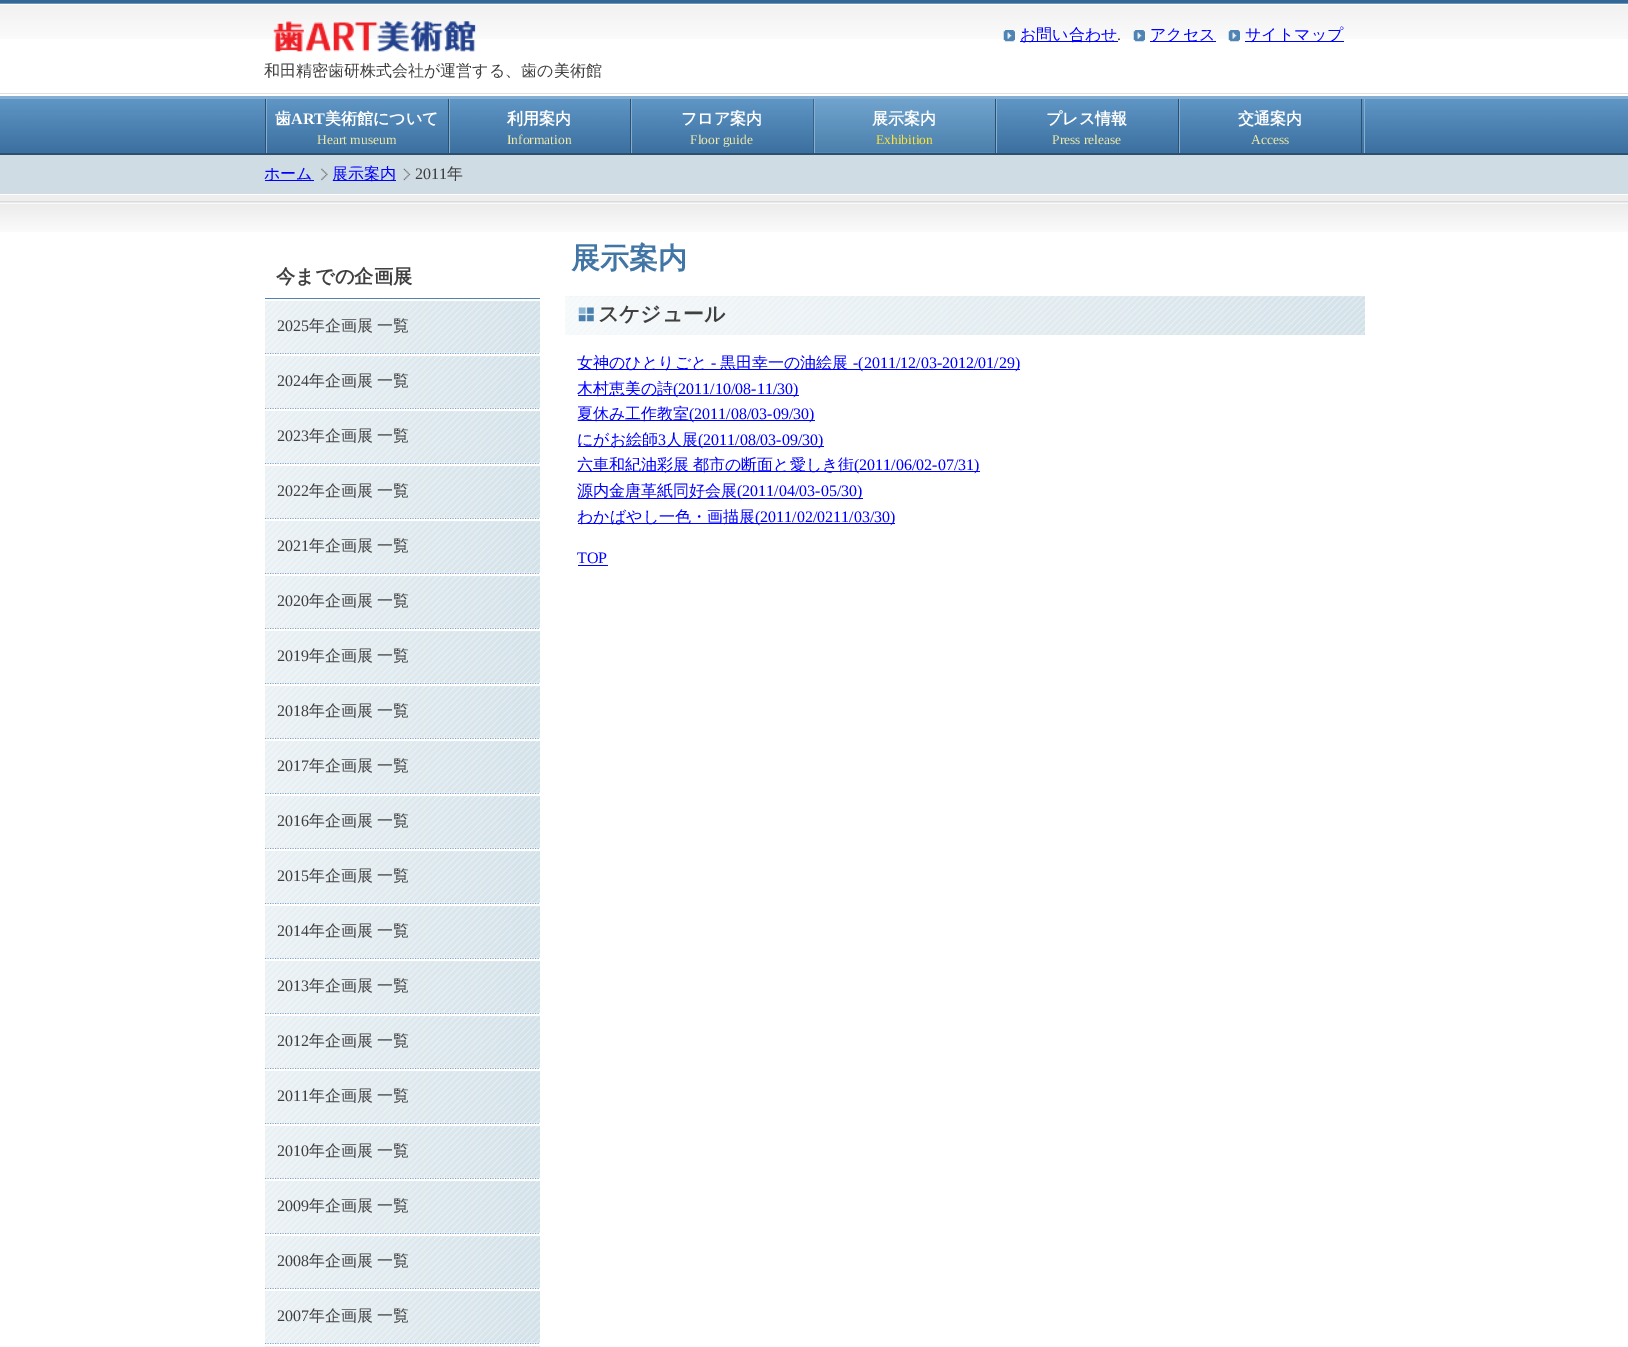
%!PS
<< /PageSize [1628 1347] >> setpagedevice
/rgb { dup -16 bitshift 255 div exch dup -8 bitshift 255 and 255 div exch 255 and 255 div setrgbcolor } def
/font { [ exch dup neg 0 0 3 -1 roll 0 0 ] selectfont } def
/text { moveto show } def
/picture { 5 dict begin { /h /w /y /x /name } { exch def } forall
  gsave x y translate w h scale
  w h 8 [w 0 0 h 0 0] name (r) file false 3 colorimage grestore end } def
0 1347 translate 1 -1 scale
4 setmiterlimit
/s1 { /WenQuanYiZenHei-Medium 16 font 16#0000FF rgb } def
/s2 { /LiberationSerif-Regular 16 font 16#404040 rgb } def
/s3 { /WenQuanYiZenHei-Medium 16 font 16#404040 rgb } def
/s4 { /WenQuanYiZenHei-Bold 16 font 16#FFFFFF rgb } def
/s5 { /LiberationSerif-Bold 16 font 16#FFFFFF rgb } def
/s6 { /LiberationSerif-Regular 13.5 font 16#EEE8AA rgb } def
/s7 { /LiberationSerif-Regular 13.5 font 16#FDE337 rgb } def
/s8 { /WenQuanYiZenHei-Bold 19.25 font 16#404040 rgb } def
/s9 { /WenQuanYiZenHei-Bold 29 font 16#4075A5 rgb } def
/s10 { /WenQuanYiZenHei-Bold 20.75 font 16#404040 rgb } def
/s11 { /LiberationSerif-Regular 16 font 16#0000FF rgb } def
16#FFFFFF rgb
0 0 1628 1347 rectfill
(pic1.raw) 0 0 1628 39 picture
16#E0E0E0 rgb
0 93 1628 1 rectfill
(pic2.raw) 273 21 203 31 picture
(pic3.raw) 1003 30 12 12 picture
16#0000FF rgb
1020 41 98 1 rectfill
s1
(お問い合わせ) 1020 40 text
s2
(.) 1117 40 text
(pic3.raw) 1133 30 12 12 picture
16#0000FF rgb
1150 41 66 1 rectfill
s1
(アクセス) 1150 40 text
(pic4.raw) 1228 30 12 12 picture
1245 41 99 1 rectfill
(サイトマップ) 1245 40 text
s3
(和田精密歯研株式会社が運営する、歯の美術館) 264 76 text
(pic5.raw) 0 99 1628 54 picture
16#84AED2 rgb
0 96 1628 3 rectfill
16#2C5170 rgb
0 153 1628 2 rectfill
16#84AED2 rgb
1364 99 1 54 rectfill
16#2C5170 rgb
265 99 1 54 rectfill
448 99 1 54 rectfill
16#84AED2 rgb
266 99 1 54 rectfill
s4
(歯) 275 124 text
s5
(ART) 291 124 text
s4
(美術館について) 325 124 text
s6
(Heart museum) 317 144 text
16#2C5170 rgb
630 99 1 54 rectfill
16#84AED2 rgb
449 99 1 54 rectfill
s4
(利用案内) 507 124 text
s6
(Information) 507 144 text
16#2C5170 rgb
813 99 1 54 rectfill
16#84AED2 rgb
631 99 1 54 rectfill
s4
(フロア案内) 681 124 text
s6
(Floor guide) 690 144 text
16#5E91BD rgb
815 152 180 1 rectfill
(pic6.raw) 813 98 184 55 picture
16#2C5170 rgb
995 99 1 54 rectfill
16#84AED2 rgb
814 99 1 54 rectfill
s4
(展示案内) 872 124 text
s7
(Exhibition) 876 144 text
16#2C5170 rgb
1178 99 1 54 rectfill
16#84AED2 rgb
996 99 1 54 rectfill
s4
(プレス情報) 1046 124 text
s6
(Press release) 1052 144 text
16#2C5170 rgb
1361 99 1 54 rectfill
16#84AED2 rgb
1179 99 1 54 rectfill
s4
(交通案内) 1238 124 text
s6
(Access) 1251 144 text
16#CFDCE3 rgb
0 155 1628 39 rectfill
16#0000FF rgb
265 180 49 1 rectfill
s1
(ホーム) 264 179 text
(pic7.raw) 321 168 7 13 picture
333 180 63 1 rectfill
(展示案内) 332 179 text
(pic8.raw) 403 168 8 13 picture
s2
(2011) 415 179 text
s3
(年) 447 179 text
(pic9.raw) 0 195 1628 37 picture
16#4E83B3 rgb
265 298 275 1 rectfill
s8
(今までの企画展) 276 283 text
16#4E83B3 rgb
1.2 setlinewidth
[1.25 1.25] 0 setdash
265 353 moveto 540 353 lineto stroke
16#EBF0F3 rgb
265 301 275 52 rectfill
(pic10.raw) 265 301 275 52 picture
s2
(2025) 277 331 text
/WenQuanYiZenHei-Medium 16 font
309 331 moveto -1 0 32 (年企画展 一覧) widthshow
16#4E83B3 rgb
265 408 moveto 540 408 lineto stroke
16#EBF0F3 rgb
265 356 275 52 rectfill
(pic11.raw) 265 356 275 52 picture
s2
(2024) 277 386 text
/WenQuanYiZenHei-Medium 16 font
309 386 moveto -1 0 32 (年企画展 一覧) widthshow
16#4E83B3 rgb
265 463 moveto 540 463 lineto stroke
16#EBF0F3 rgb
265 411 275 52 rectfill
(pic12.raw) 265 411 275 52 picture
s2
(2023) 277 441 text
/WenQuanYiZenHei-Medium 16 font
309 441 moveto -1 0 32 (年企画展 一覧) widthshow
16#4E83B3 rgb
265 518 moveto 540 518 lineto stroke
16#EBF0F3 rgb
265 466 275 52 rectfill
(pic13.raw) 265 466 275 52 picture
s2
(2022) 277 496 text
/WenQuanYiZenHei-Medium 16 font
309 496 moveto -1 0 32 (年企画展 一覧) widthshow
16#4E83B3 rgb
265 573 moveto 540 573 lineto stroke
16#EBF0F3 rgb
265 521 275 52 rectfill
(pic14.raw) 265 521 275 52 picture
s2
(2021) 277 551 text
/WenQuanYiZenHei-Medium 16 font
309 551 moveto -1 0 32 (年企画展 一覧) widthshow
16#4E83B3 rgb
265 628 moveto 540 628 lineto stroke
16#EBF0F3 rgb
265 576 275 52 rectfill
(pic15.raw) 265 576 275 52 picture
s2
(2020) 277 606 text
/WenQuanYiZenHei-Medium 16 font
309 606 moveto -1 0 32 (年企画展 一覧) widthshow
16#4E83B3 rgb
265 683 moveto 540 683 lineto stroke
16#EBF0F3 rgb
265 631 275 52 rectfill
(pic16.raw) 265 631 275 52 picture
s2
(2019) 277 661 text
/WenQuanYiZenHei-Medium 16 font
309 661 moveto -1 0 32 (年企画展 一覧) widthshow
16#4E83B3 rgb
265 738 moveto 540 738 lineto stroke
16#EBF0F3 rgb
265 686 275 52 rectfill
(pic17.raw) 265 686 275 52 picture
s2
(2018) 277 716 text
/WenQuanYiZenHei-Medium 16 font
309 716 moveto -1 0 32 (年企画展 一覧) widthshow
16#4E83B3 rgb
265 793 moveto 540 793 lineto stroke
16#EBF0F3 rgb
265 741 275 52 rectfill
(pic18.raw) 265 741 275 52 picture
s2
(2017) 277 771 text
/WenQuanYiZenHei-Medium 16 font
309 771 moveto -1 0 32 (年企画展 一覧) widthshow
16#4E83B3 rgb
265 848 moveto 540 848 lineto stroke
16#EBF0F3 rgb
265 796 275 52 rectfill
(pic19.raw) 265 796 275 52 picture
s2
(2016) 277 826 text
/WenQuanYiZenHei-Medium 16 font
309 826 moveto -1 0 32 (年企画展 一覧) widthshow
16#4E83B3 rgb
265 903 moveto 540 903 lineto stroke
16#EBF0F3 rgb
265 851 275 52 rectfill
(pic20.raw) 265 851 275 52 picture
s2
(2015) 277 881 text
/WenQuanYiZenHei-Medium 16 font
309 881 moveto -1 0 32 (年企画展 一覧) widthshow
16#4E83B3 rgb
265 958 moveto 540 958 lineto stroke
16#EBF0F3 rgb
265 906 275 52 rectfill
(pic21.raw) 265 906 275 52 picture
s2
(2014) 277 936 text
/WenQuanYiZenHei-Medium 16 font
309 936 moveto -1 0 32 (年企画展 一覧) widthshow
16#4E83B3 rgb
265 1013 moveto 540 1013 lineto stroke
16#EBF0F3 rgb
265 961 275 52 rectfill
(pic22.raw) 265 961 275 52 picture
s2
(2013) 277 991 text
/WenQuanYiZenHei-Medium 16 font
309 991 moveto -1 0 32 (年企画展 一覧) widthshow
16#4E83B3 rgb
265 1068 moveto 540 1068 lineto stroke
16#EBF0F3 rgb
265 1016 275 52 rectfill
(pic23.raw) 265 1016 275 52 picture
s2
(2012) 277 1046 text
/WenQuanYiZenHei-Medium 16 font
309 1046 moveto -1 0 32 (年企画展 一覧) widthshow
16#4E83B3 rgb
265 1123 moveto 540 1123 lineto stroke
16#EBF0F3 rgb
265 1071 275 52 rectfill
(pic24.raw) 265 1071 275 52 picture
s2
(2011) 277 1101 text
/WenQuanYiZenHei-Medium 16 font
309 1101 moveto -1 0 32 (年企画展 一覧) widthshow
16#4E83B3 rgb
265 1178 moveto 540 1178 lineto stroke
16#EBF0F3 rgb
265 1126 275 52 rectfill
(pic25.raw) 265 1126 275 52 picture
s2
(2010) 277 1156 text
/WenQuanYiZenHei-Medium 16 font
309 1156 moveto -1 0 32 (年企画展 一覧) widthshow
16#4E83B3 rgb
265 1233 moveto 540 1233 lineto stroke
16#EBF0F3 rgb
265 1181 275 52 rectfill
(pic26.raw) 265 1181 275 52 picture
s2
(2009) 277 1211 text
/WenQuanYiZenHei-Medium 16 font
309 1211 moveto -1 0 32 (年企画展 一覧) widthshow
16#4E83B3 rgb
265 1288 moveto 540 1288 lineto stroke
16#EBF0F3 rgb
265 1236 275 52 rectfill
(pic27.raw) 265 1236 275 52 picture
s2
(2008) 277 1266 text
/WenQuanYiZenHei-Medium 16 font
309 1266 moveto -1 0 32 (年企画展 一覧) widthshow
16#4E83B3 rgb
265 1343 moveto 540 1343 lineto stroke
16#EBF0F3 rgb
265 1291 275 52 rectfill
(pic21.raw) 265 1291 275 52 picture
s2
(2007) 277 1321 text
/WenQuanYiZenHei-Medium 16 font
309 1321 moveto -1 0 32 (年企画展 一覧) widthshow
16#EBF0F3 rgb
265 1346 275 1 rectfill
(pic28.raw) 268 1346 272 1 picture
s9
(展示案内) 571 268 text
(pic29.raw) 565 296 800 39 picture
(pic30.raw) 578 307 16 15 picture
s10
(スケジュール) 598 321 text
16#0000FF rgb
578 369 442 1 rectfill
s1
(女神のひとりごと) 577 368 text
s11
(-) 711 368 text
s1
(黒田幸一の油絵展) 720 368 text
s11
(-\(2011/12/03-2012/01/29\)) 853 368 text
578 395 221 1 rectfill
s1
(木村恵美の詩) 577 394 text
s11
(\(2011/10/08-11/30\)) 673 394 text
578 420 237 1 rectfill
s1
(夏休み工作教室) 577 419 text
s11
(\(2011/08/03-09/30\)) 689 419 text
578 446 246 1 rectfill
s1
(にがお絵師) 577 445 text
s11
(3) 658 445 text
s1
(人展) 666 445 text
s11
(\(2011/08/03-09/30\)) 698 445 text
578 471 402 1 rectfill
/WenQuanYiZenHei-Medium 16 font
577 470 moveto -1 0 32 (六車和紀油彩展 都市の断面と愛しき街) widthshow
s11
(\(2011/06/02-07/31\)) 854 470 text
578 498 285 1 rectfill
s1
(源内金唐革紙同好会展) 577 496 text
s11
(\(2011/04/03-05/30\)) 737 496 text
578 523 317 1 rectfill
s1
(わかばやし一色・画描展) 577 522 text
s11
(\(2011/02/0211/03/30\)) 755 522 text
(TOP) 577 563 text
578 565 30 1 rectfill
showpage
